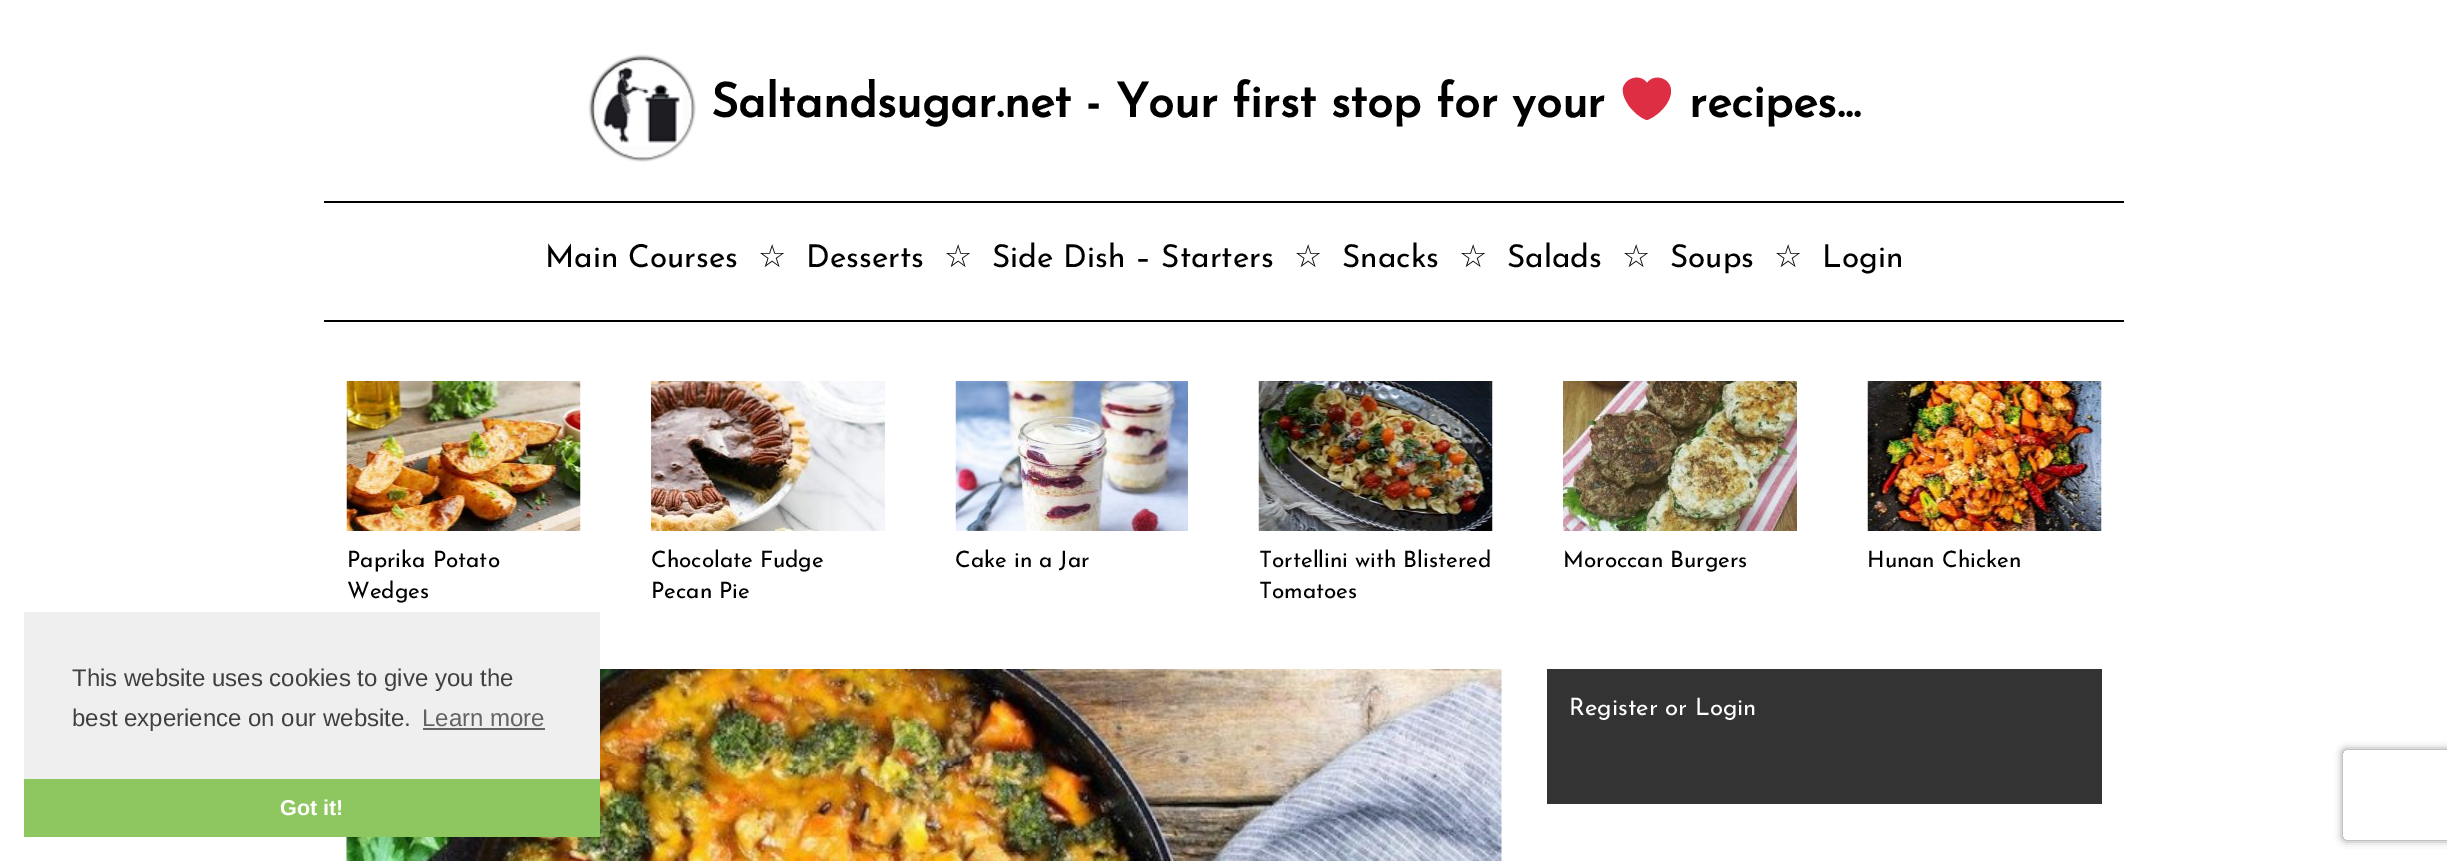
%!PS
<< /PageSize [2447 861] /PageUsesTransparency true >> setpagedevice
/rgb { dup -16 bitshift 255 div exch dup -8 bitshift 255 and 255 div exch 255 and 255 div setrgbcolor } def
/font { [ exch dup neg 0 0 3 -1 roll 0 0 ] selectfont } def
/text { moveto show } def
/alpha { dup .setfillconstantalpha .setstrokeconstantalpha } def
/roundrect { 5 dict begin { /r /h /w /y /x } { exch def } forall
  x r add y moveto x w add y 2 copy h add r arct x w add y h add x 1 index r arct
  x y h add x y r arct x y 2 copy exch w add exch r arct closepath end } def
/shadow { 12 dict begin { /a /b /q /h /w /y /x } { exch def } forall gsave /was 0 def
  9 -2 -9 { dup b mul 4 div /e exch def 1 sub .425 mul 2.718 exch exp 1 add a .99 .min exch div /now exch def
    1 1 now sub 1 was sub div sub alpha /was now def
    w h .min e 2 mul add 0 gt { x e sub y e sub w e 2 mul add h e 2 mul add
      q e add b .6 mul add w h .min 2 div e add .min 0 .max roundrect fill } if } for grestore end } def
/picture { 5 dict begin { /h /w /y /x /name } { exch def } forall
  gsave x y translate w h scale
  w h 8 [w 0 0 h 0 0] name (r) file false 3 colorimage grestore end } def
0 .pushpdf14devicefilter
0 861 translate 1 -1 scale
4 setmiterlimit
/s1 { /JosefinSans-Bold 47.25 font 16#000000 rgb } def
/s2 { /JosefinSans-Thin 31.5 font 16#000000 rgb } def
/s3 { /DejaVuSans-Regular 31.5 font 16#000000 rgb } def
/s4 { /JosefinSans-Thin 22.5 font 16#000000 rgb } def
/s5 { /JosefinSans-Thin 24 font 16#FFFFFF rgb } def
/s6 { /LiberationSans-Regular 24 font 16#404040 rgb } def
/s7 { /LiberationSans-Regular 24 font 16#636363 rgb } def
/s8 { /LiberationSans-Bold 21.5 font 16#FFFFFF rgb } def
16#FFFFFF rgb
0 0 2447 861 rectfill
(pic1.raw) 588 54 108 108 picture
s1
(Saltandsugar.net - Your first stop for your) 711 117 text
16#DD2E44 rgb
1671 91 moveto 1671 78 1654 73 1647 83 curveto 1641 74 1626 77 1623 88 curveto 1622 95 1626 101 1629 106 curveto 1634 112 1640 118 1647 120 curveto 1658 116 1671 103 1671 91 curveto closepath fill
s1
(recipes...) 1689 117 text
324 201 1800 2 rectfill
324 320 1800 2 rectfill
s2
(Main Courses) 545 267 text
s3
(☆) 758 267 text
s2
(Desserts) 806 267 text
s3
(☆) 944 267 text
s2
(Side Dish – Starters) 992 267 text
s3
(☆) 1294 267 text
s2
(Snacks) 1342 267 text
s3
(☆) 1459 267 text
s2
(Salads) 1507 267 text
s3
(☆) 1622 267 text
s2
(Soups) 1670 267 text
s3
(☆) 1774 267 text
s2
(Login) 1822 267 text
(pic2.raw) 346 381 235 150 picture
s4
(Paprika Potato) 347 567 text
(Wedges) 347 598 text
(pic3.raw) 651 381 234 150 picture
(Chocolate Fudge) 651 567 text
(Pecan Pie) 651 598 text
(pic4.raw) 955 381 233 150 picture
(Cake in a Jar) 955 567 text
(pic5.raw) 1258 381 235 150 picture
(Tortellini with Blistered) 1259 567 text
(Tomatoes) 1259 598 text
(pic6.raw) 1563 381 234 150 picture
(Moroccan Burgers) 1563 567 text
(pic7.raw) 1867 381 235 150 picture
(Hunan Chicken) 1867 567 text
(pic8.raw) 346 669 1156 192 picture
16#333333 rgb
1547 669 555 135 rectfill
s5
(Register or Login) 1569 715 text
16#EFEFEF rgb
24 612 576 167 rectfill
s6
(This website uses cookies to give you the) 72 686 text
(best experience on our website.) 72 726 text
s7
(Learn more) 422 726 text
423 728 122 2 rectfill
16#8EC760 rgb
24 779 576 58 rectfill
s8
(Got it!) 280 815 text
gsave
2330 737 moveto 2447 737 lineto 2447 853 lineto 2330 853 lineto closepath 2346 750 moveto 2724 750 lineto 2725.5 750 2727 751.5 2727 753 curveto 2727 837 lineto 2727 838.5 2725.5 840 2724 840 curveto 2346 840 lineto 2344.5 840 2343 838.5 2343 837 curveto 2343 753 lineto 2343 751.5 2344.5 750 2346 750 curveto closepath eoclip newpath
16#808080 rgb
2343 750 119 90 3 4 1 shadow
grestore
.poppdf14devicefilter showpage
